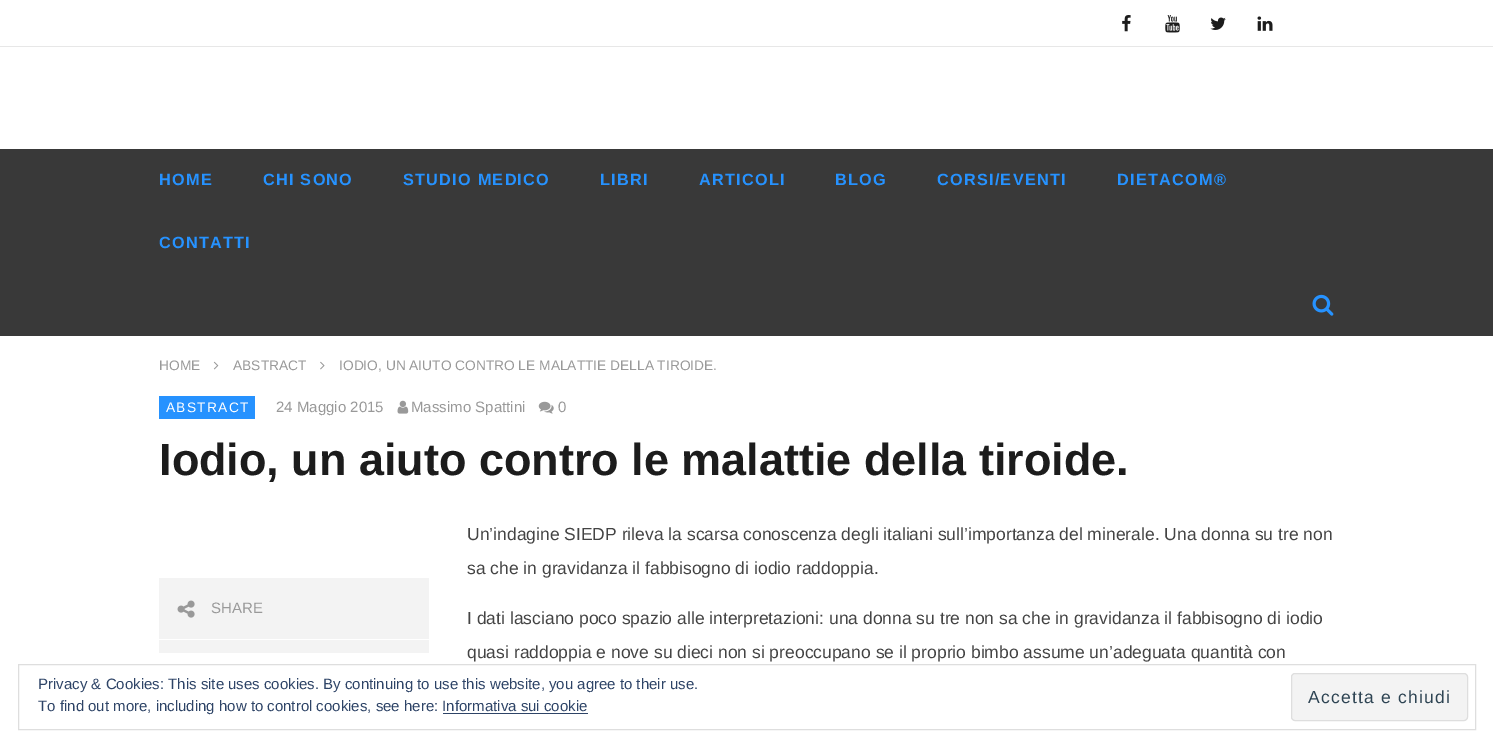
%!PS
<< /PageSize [1493 747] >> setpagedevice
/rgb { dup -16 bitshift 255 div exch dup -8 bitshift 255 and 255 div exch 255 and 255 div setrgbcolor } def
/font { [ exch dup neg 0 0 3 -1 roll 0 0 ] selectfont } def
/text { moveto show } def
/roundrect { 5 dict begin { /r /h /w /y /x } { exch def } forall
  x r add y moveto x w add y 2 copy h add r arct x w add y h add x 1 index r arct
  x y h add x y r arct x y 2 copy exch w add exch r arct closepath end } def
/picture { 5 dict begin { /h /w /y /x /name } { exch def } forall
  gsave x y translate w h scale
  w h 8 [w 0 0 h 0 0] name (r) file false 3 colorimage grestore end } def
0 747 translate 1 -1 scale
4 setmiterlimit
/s1 { /LiberationSans-Regular 13.75 font 16#999999 rgb } def
/s2 { /LiberationSans-Regular 15 font 16#999999 rgb } def
/s3 { /LiberationSans-Bold 45 font 16#1C1C1C rgb } def
/s4 { /LiberationSans-Regular 17.5 font 16#444444 rgb } def
/s5 { /LiberationSans-Regular 15 font 16#2E4467 rgb } def
16#FFFFFF rgb
0 0 1493 747 rectfill
16#E7E7E7 rgb
0 46 1493 1 rectfill
(pic1.raw) 1122 15 9 17 picture
(pic2.raw) 1165 15 15 18 picture
(pic3.raw) 1210 17 16 13 picture
(pic4.raw) 1257 16 16 15 picture
16#393939 rgb
0 149 1493 187 rectfill
/LiberationSans-Bold 16.25 font
16#2692FF rgb
159 185 moveto 1.25 0 (HOME) ashow
263 185 moveto 1.25 0 (CHI SONO) ashow
403 185 moveto 1.25 0 (STUDIO MEDICO) ashow
600 185 moveto 1.25 0 (LIBRI) ashow
699 185 moveto 1.25 0 (ARTICOLI) ashow
835 185 moveto 1.25 0 (BLOG) ashow
937 185 moveto 1.25 0 (CORSI/EVENTI) ashow
1117 185 moveto 1.25 0 (DIETACOM®) ashow
159 248 moveto 1.25 0 (CONTATTI) ashow
(pic5.raw) 1312 294 22 22 picture
s1
(HOME) 159 370 text
(pic6.raw) 213 361 6 9 picture
(ABSTRACT) 233 370 text
(pic7.raw) 320 361 5 9 picture
(IODIO, UN AIUTO CONTRO LE MALATTIE DELLA TIROIDE.) 339 370 text
16#2692FF rgb
159 396 96 23 rectfill
16#FFFFFF rgb
166 412 moveto 1.25 0 (ABSTRACT) ashow
s2
(24 Maggio 2015) 276 412 text
(pic8.raw) 397 400 12 14 picture
(Massimo Spattini) 411 412 text
(pic9.raw) 538 401 16 13 picture
(0) 558 412 text
s3
(Iodio, un aiuto contro le malattie della tiroide.) 159 475 text
16#F3F3F3 rgb
159 578 270 75 rectfill
16#FFFFFF rgb
159 639 270 1 rectfill
(pic10.raw) 177 600 18 18 picture
s2
(SHARE) 211 613 text
s4
(Un’indagine SIEDP rileva la scarsa conoscenza degli italiani sull’importanza del minerale. Una donna su tre non) 467 540 text
(sa che in gravidanza il fabbisogno di iodio raddoppia.) 467 574 text
(I dati lasciano poco spazio alle interpretazioni: una donna su tre non sa che in gravidanza il fabbisogno di iodio) 467 624 text
(quasi raddoppia e nove su dieci non si preoccupano se il proprio bimbo assume un’adeguata quantità con) 467 658 text
16#DEDEDE rgb
18.5 664.5 1457 65 rectstroke
s5
(Privacy & Cookies: This site uses cookies. By continuing to use this website, you agree to their use.) 38 689 text
16#F3F3F3 rgb
1291.5 673.5 176 47 3.5 roundrect gsave fill grestore
16#DEDEDE rgb
stroke
/LiberationSans-Regular 17.5 font
16#2E4453 rgb
1308 703 moveto 1.25 0 (Accetta e chiudi) ashow
s5
(To find out more, including how to control cookies, see here: Informativa sui cookie) 38 711 text
443 713 145 1 rectfill
showpage
